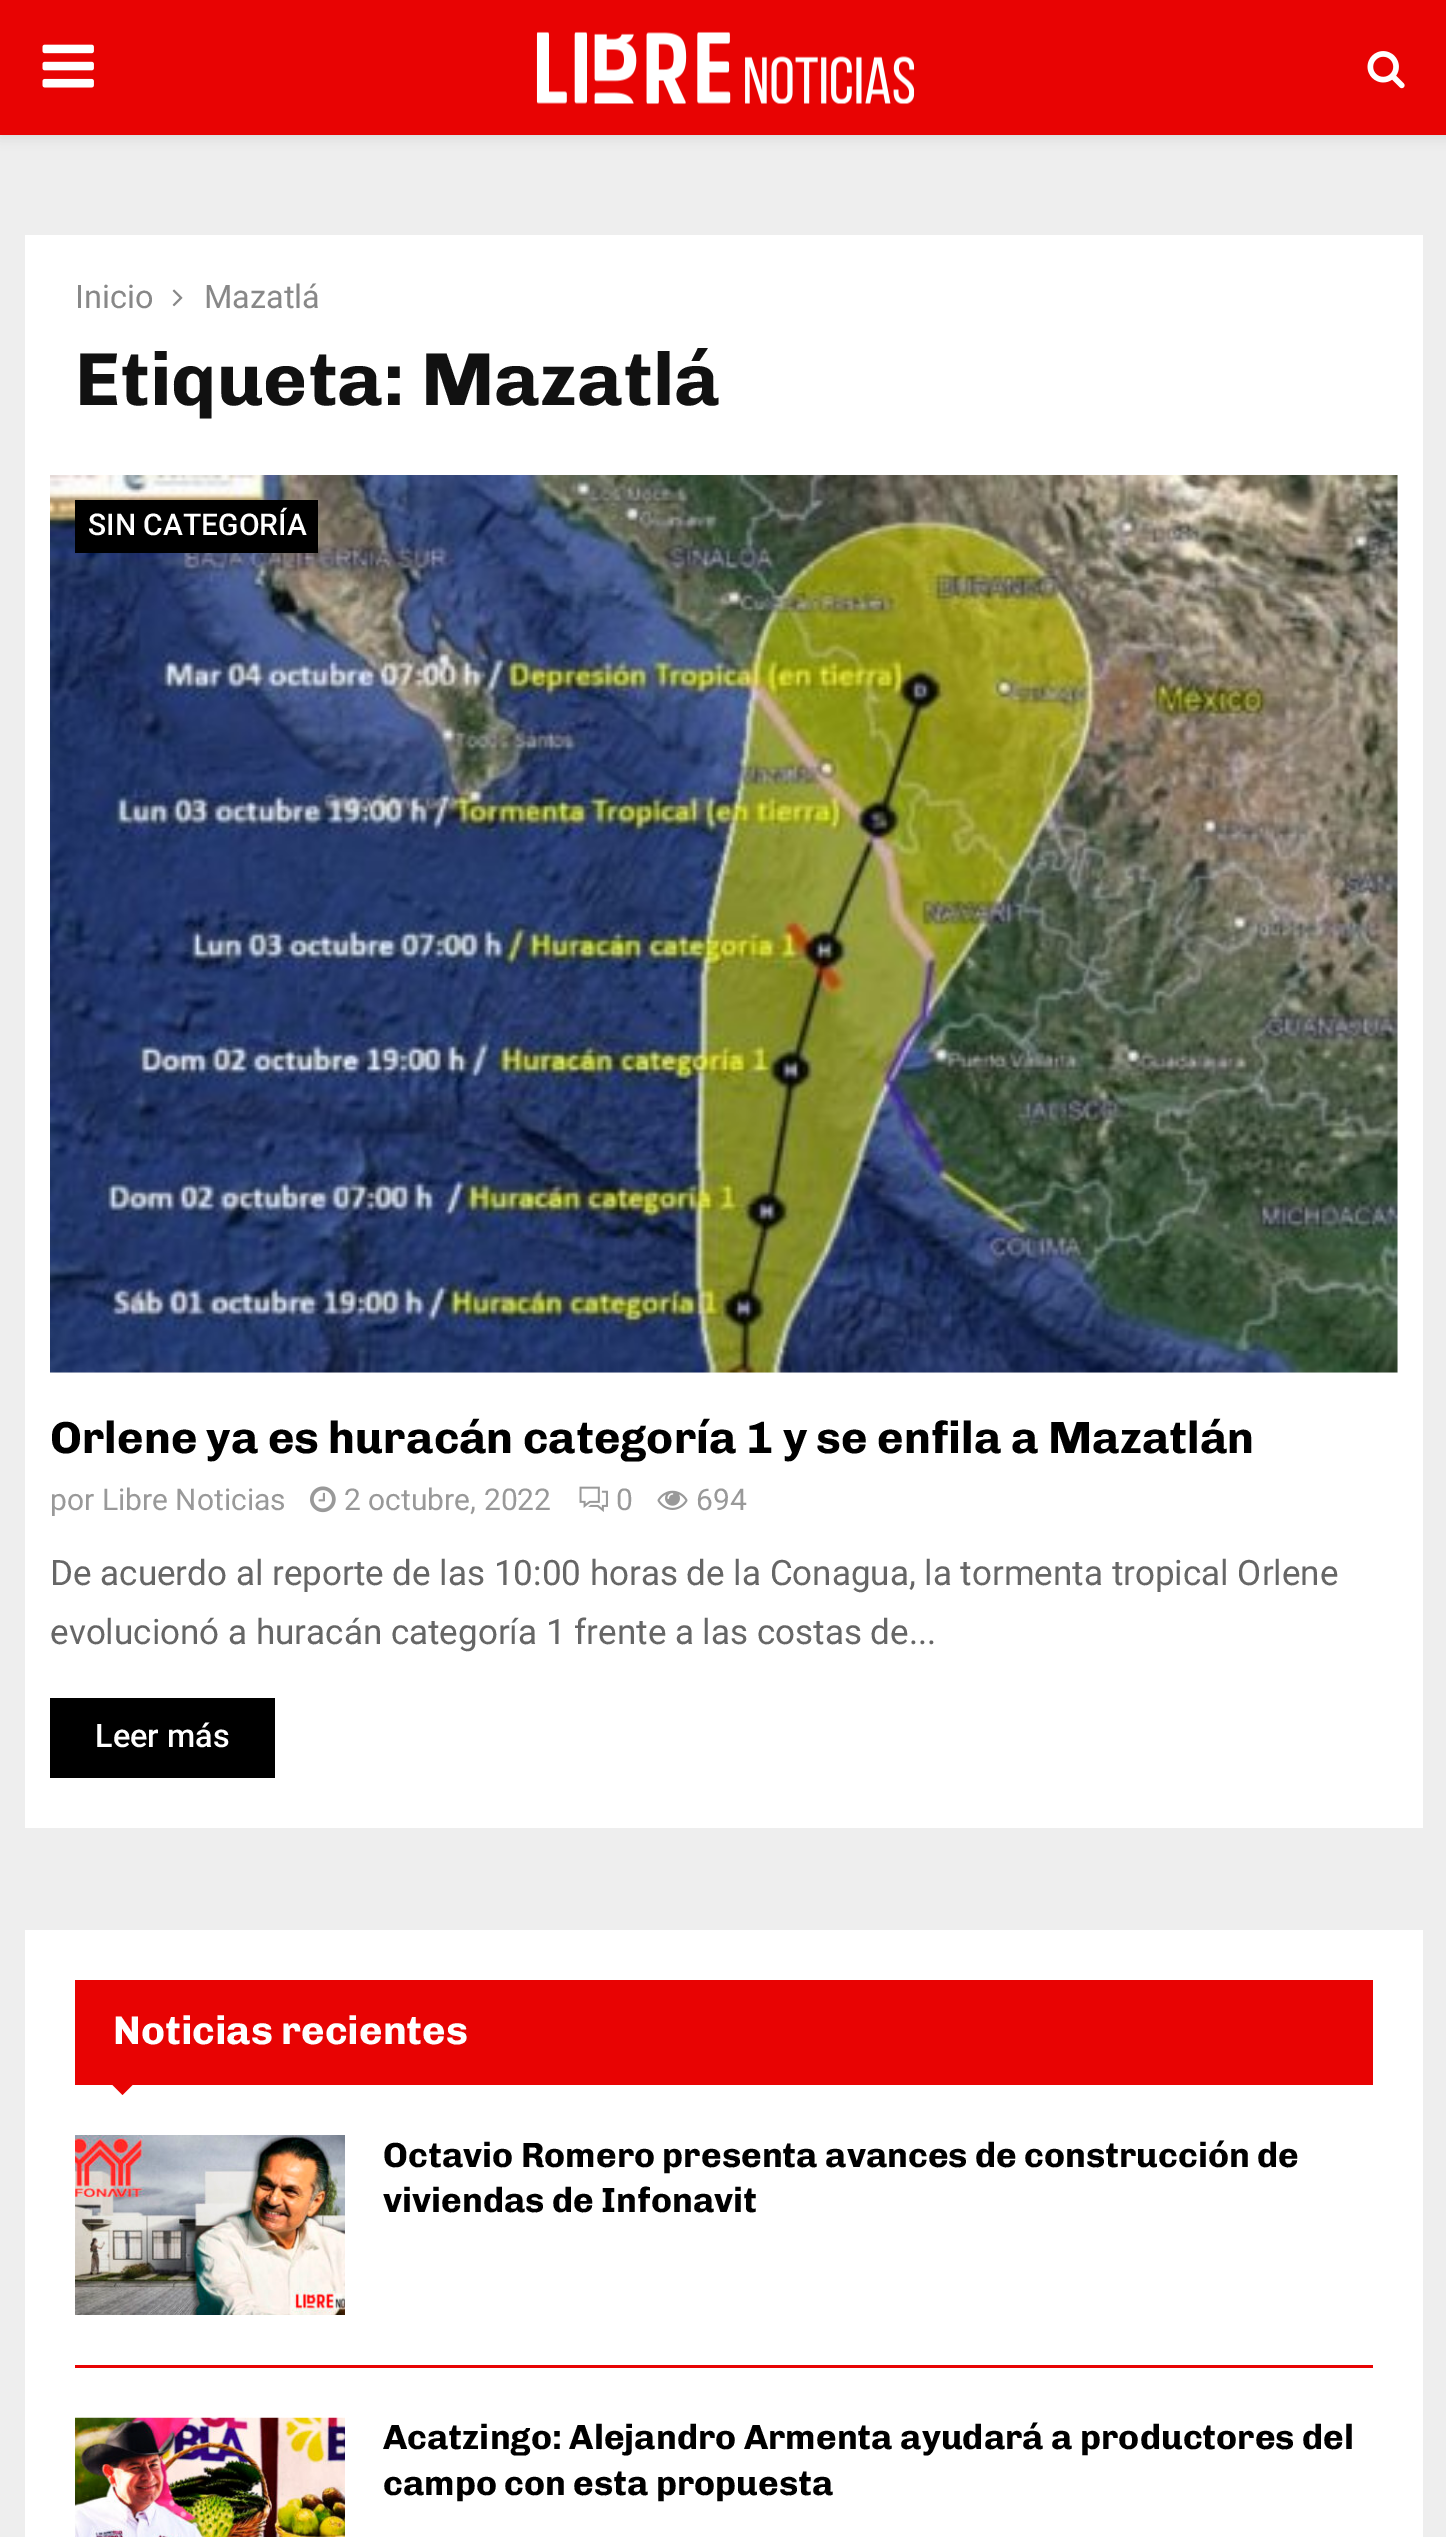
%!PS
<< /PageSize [1446 2537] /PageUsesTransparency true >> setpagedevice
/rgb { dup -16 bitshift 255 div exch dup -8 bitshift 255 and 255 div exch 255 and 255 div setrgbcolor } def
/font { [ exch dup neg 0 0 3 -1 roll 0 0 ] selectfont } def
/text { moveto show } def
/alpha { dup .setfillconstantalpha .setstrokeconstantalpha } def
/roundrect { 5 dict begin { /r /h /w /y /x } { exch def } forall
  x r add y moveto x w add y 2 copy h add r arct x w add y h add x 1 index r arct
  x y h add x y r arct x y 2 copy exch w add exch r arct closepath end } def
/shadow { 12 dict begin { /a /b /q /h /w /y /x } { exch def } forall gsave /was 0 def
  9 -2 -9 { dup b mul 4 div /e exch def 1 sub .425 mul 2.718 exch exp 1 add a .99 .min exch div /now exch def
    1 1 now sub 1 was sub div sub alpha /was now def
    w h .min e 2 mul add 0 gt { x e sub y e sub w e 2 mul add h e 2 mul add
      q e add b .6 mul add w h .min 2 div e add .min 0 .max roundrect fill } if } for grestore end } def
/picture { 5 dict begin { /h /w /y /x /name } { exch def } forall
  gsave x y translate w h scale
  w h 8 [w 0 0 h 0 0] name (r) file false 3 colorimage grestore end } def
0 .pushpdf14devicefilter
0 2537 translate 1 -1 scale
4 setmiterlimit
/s1 { /Roboto-Regular 32.5 font 16#888888 rgb } def
/s2 { /Chivo-Bold 75 font 16#111111 rgb } def
/s3 { /Roboto-Medium 30 font 16#FFFFFF rgb } def
/s4 { /Chivo-Bold 45 font 16#000000 rgb } def
/s5 { /Roboto-Regular 30 font 16#999999 rgb } def
/s6 { /Roboto-Regular 35 font 16#666666 rgb } def
/s7 { /Roboto-Medium 32.5 font 16#FFFFFF rgb } def
/s8 { /Chivo-Bold 40 font 16#FFFFFF rgb } def
/s9 { /Chivo-Bold 35 font 16#000000 rgb } def
16#EEEEEE rgb
0 0 1446 2537 rectfill
16#BEBEBE rgb
0 3 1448 135 0 6 0.46 shadow
16#E80303 rgb
0 0 1446 135 rectfill
(pic1.raw) 42 44 52 44 picture
(pic2.raw) 536 31 379 74 picture
(pic3.raw) 1367 51 38 38 picture
16#FFFFFF rgb
25 235 1398 1593 rectfill
s1
(Inicio) 75 308 text
(pic4.raw) 172 289 11 18 picture
(Mazatlá) 204 308 text
s2
(Etiqueta: Mazatlá) 75 405 text
16#F5F5F5 rgb
50 475 1348 898 rectfill
(pic5.raw) 50 475 1348 898 picture
16#000000 rgb
75 500 243 53 rectfill
s3
(SIN CATEGORÍA) 88 535 text
s4
(Orlene ya es huracán categoría 1 y se enfila a Mazatlán) 50 1453 text
s5
(por Libre Noticias) 50 1510 text
(pic6.raw) 310 1486 26 27 picture
(2 octubre, 2022) 344 1510 text
(pic7.raw) 579 1486 29 26 picture
(0) 616 1510 text
(pic8.raw) 657 1490 31 20 picture
(694) 696 1510 text
s6
(De acuerdo al reporte de las 10:00 horas de la Conagua, la tormenta tropical Orlene) 50 1585 text
(evolucionó a huracán categoría 1 frente a las costas de...) 50 1644 text
16#000000 rgb
50 1698 225 80 rectfill
s7
(Leer más) 95 1747 text
25 1930 1398 607 rectfill
16#E80303 rgb
75 1980 1298 105 rectfill
s8
(Noticias recientes) 113 2044 text
16#E80303 rgb
112.5 2085 moveto 132.5 2085 lineto 122.5 2095 lineto closepath fill
75 2365 1298 3 rectfill
(pic9.raw) 75 2135 270 180 picture
s9
(Octavio Romero presenta avances de construcción de) 383 2167 text
(viviendas de Infonavit) 383 2212 text
(pic10.raw) 75 2417 270 120 picture
(Acatzingo: Alejandro Armenta ayudará a productores del) 383 2449 text
(campo con esta propuesta) 383 2495 text
.poppdf14devicefilter showpage
